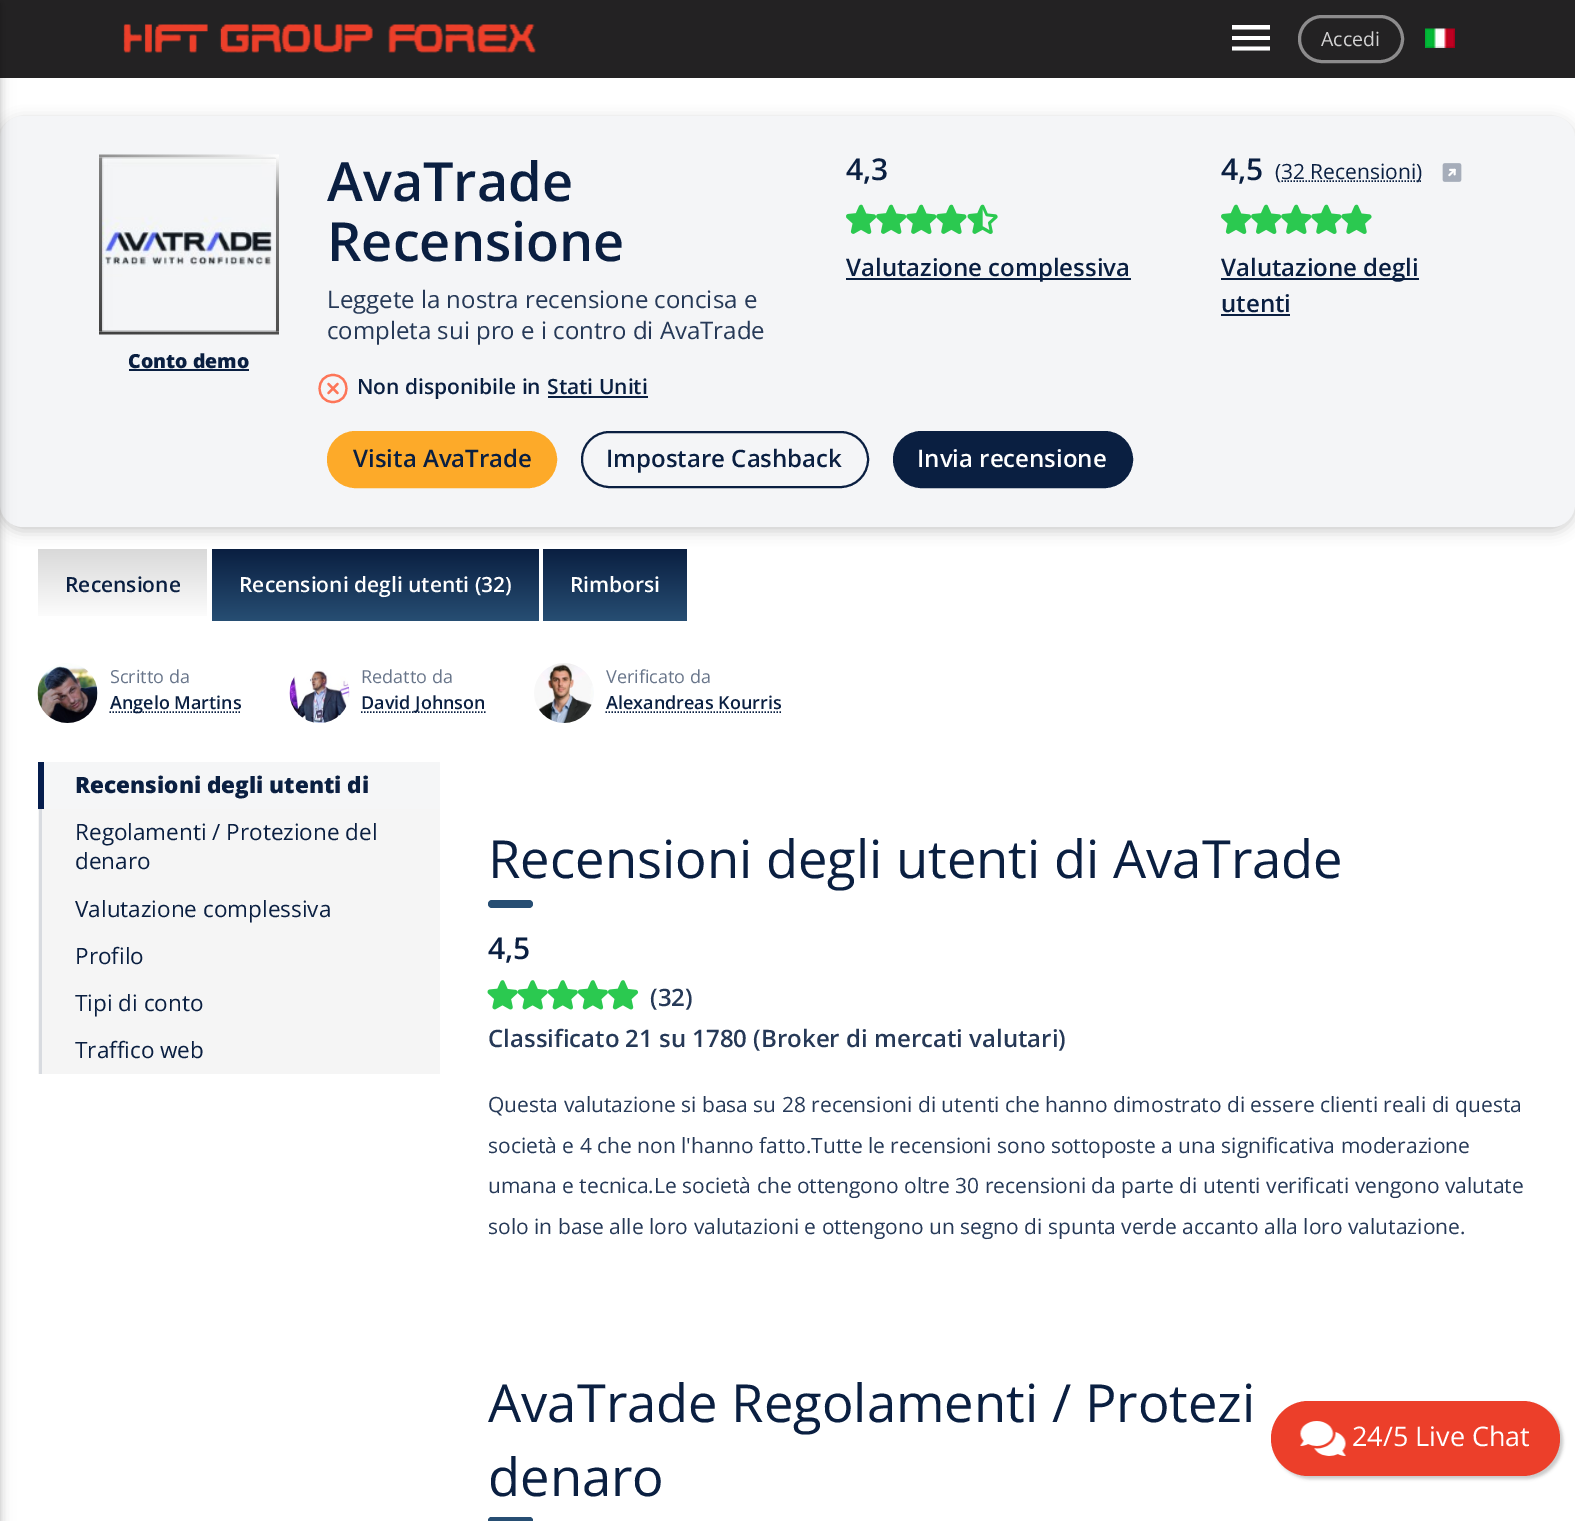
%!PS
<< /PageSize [1575 1521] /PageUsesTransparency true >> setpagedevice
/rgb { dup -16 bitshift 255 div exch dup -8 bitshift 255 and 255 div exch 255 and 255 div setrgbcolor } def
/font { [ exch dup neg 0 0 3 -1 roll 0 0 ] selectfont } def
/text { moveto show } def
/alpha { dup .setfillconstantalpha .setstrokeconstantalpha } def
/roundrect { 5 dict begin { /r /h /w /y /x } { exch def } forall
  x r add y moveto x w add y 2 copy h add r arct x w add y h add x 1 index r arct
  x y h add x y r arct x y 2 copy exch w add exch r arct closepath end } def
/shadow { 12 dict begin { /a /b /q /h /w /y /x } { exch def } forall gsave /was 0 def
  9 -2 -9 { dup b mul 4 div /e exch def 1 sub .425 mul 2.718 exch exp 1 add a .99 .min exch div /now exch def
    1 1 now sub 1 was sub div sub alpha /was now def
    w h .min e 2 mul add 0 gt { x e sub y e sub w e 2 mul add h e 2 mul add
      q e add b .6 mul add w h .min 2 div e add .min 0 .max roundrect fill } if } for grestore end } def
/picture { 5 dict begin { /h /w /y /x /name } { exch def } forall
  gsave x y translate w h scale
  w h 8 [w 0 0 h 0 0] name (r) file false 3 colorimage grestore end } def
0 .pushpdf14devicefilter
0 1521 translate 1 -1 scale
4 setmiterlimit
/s1 { /OpenSans-Regular 19.5 font 16#D3D3D3 rgb } def
/s2 { /OpenSans-ExtraBold 19.5 font 16#0A1F41 rgb } def
/s3 { /OpenSans-SemiBold 54 font 16#0A1F41 rgb } def
/s4 { /OpenSans-Regular 24 font 16#263957 rgb } def
/s5 { /OpenSans-SemiBold 21 font 16#0A1F41 rgb } def
/s6 { /OpenSans-SemiBold 30 font 16#0A1F41 rgb } def
/s7 { /OpenSans-SemiBold 24 font 16#0A1F41 rgb } def
/s8 { /OpenSans-Regular 21 font 16#0A1F41 rgb } def
/s9 { /OpenSans-SemiBold 24 font 16#FFFFFF rgb } def
/s10 { /OpenSans-SemiBold 21 font 16#FFFFFF rgb } def
/s11 { /OpenSans-Regular 18 font 16#68758A rgb } def
/s12 { /OpenSans-SemiBold 18 font 16#0A1F41 rgb } def
/s13 { /OpenSans-ExtraBold 22.5 font 16#0A1F41 rgb } def
/s14 { /OpenSans-Regular 22.5 font 16#0A1F41 rgb } def
/s15 { /OpenSans-Regular 52.5 font 16#0A1F41 rgb } def
/s16 { /OpenSans-SemiBold 24 font 16#263957 rgb } def
/s17 { /OpenSans-Regular 21 font 16#263957 rgb } def
/s18 { /OpenSans-Regular 27 font 16#FFFFFF rgb } def
16#FFFFFF rgb
0 0 1575 1521 rectfill
16#232223 rgb
0 0 1575 78 rectfill
16#000000 rgb
0 120 1575 411 23 7 0.2 shadow
16#F4F5F7 rgb
0 116 1575 411 23 roundrect fill
16#000000 rgb
-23 3 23 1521 0 7.5 0.12 shadow
-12 3 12 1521 0 4 0.16 shadow
(pic1.raw) 123 24 413 29 picture
16#FFFFFF rgb
1232 25 moveto 1270 25 lineto 1270 29.5 lineto 1232 29.5 lineto closepath 1232 36 moveto 1270 36 lineto 1270 40 lineto 1232 40 lineto closepath 1232 46.5 moveto 1270 46.5 lineto 1270 50.5 lineto 1232 50.5 lineto closepath fill
16#8D8C8D rgb
3 setlinewidth
1299.5 16.5 103 45 22.5 roundrect stroke
s1
(Accedi) 1321 46 text
(pic2.raw) 1425 28 30 20 picture
(pic3.raw) 99 154 180 181 picture
(pic4.raw) 102 157 174 175 picture
s2
(Conto demo) 128 368 text
129 369 120 2 rectfill
s3
(AvaTrade) 327 201 text
(Recensione) 327 261 text
s4
(Leggete la nostra recensione concisa e) 327 308 text
(completa sui pro e i contro di AvaTrade) 327 339 text
16#FD7558 rgb
2.2 setlinewidth
1 setlinecap
1 setlinejoin
333 402 moveto 351 402 351 375 333 375 curveto 315 375 315 402 333 402 curveto closepath 337.5 384 moveto 328.5 393 lineto 337.5 393 moveto 328.5 384 lineto stroke
s5
(Non disponibile in) 357 394 text
(Stati Uniti) 547 394 text
548 396 100 2 rectfill
s6
(4,3) 846 180 text
(pic5.raw) 846 204 121 30 picture
(pic6.raw) 967 204 31 30 picture
846 278 285 2 rectfill
s7
(Valutazione complessiva) 846 276 text
s6
(4,5) 1221 180 text
s8
(\() 1275 179 text
1.5 setlinewidth
0 setlinecap
0 setlinejoin
[1.5 1.5] 0 setdash
1281.5 181 moveto 1422.5 181 lineto stroke
(32 Recensioni\)) 1281 179 text
(pic7.raw) 1442 163 20 19 picture
(pic8.raw) 1221 204 151 30 picture
1221 278 198 2 rectfill
s7
(Valutazione degli) 1221 276 text
(utenti) 1221 312 text
1221 314 69 2 rectfill
16#FDAA29 rgb
328 432 228 55 27.5 roundrect gsave fill grestore
2 setlinewidth
[] 0 setdash
stroke
s7
(Visita AvaTrade) 353 467 text
582 432 286 55 27.5 roundrect stroke
(Impostare Cashback) 606 467 text
894 432 238 55 27.5 roundrect gsave fill grestore
stroke
s9
(Invia recensione) 917 467 text
gsave 38 549 moveto 207 549 lineto 207 616 lineto 38 616 lineto closepath clip newpath
<< /ShadingType 2 /ColorSpace /DeviceRGB /Coords [122 621 122 549] /Extend [true true] /Function << /FunctionType 2 /Domain [0 1] /C0 [1 1 1] /C1 [0.851 0.851 0.851] /N 1 >> >> shfill grestore
s5
(Recensione) 65 592 text
gsave 212 549 moveto 539 549 lineto 539 621 lineto 212 621 lineto closepath clip newpath
<< /ShadingType 2 /ColorSpace /DeviceRGB /Coords [375 549 375 621] /Extend [true true] /Function << /FunctionType 2 /Domain [0 1] /C0 [0.039 0.122 0.255] /C1 [0.153 0.306 0.451] /N 1 >> >> shfill grestore
s10
(Recensioni degli utenti \(32\)) 239 592 text
gsave 543 549 moveto 687 549 lineto 687 621 lineto 543 621 lineto closepath clip newpath
<< /ShadingType 2 /ColorSpace /DeviceRGB /Coords [615 549 615 621] /Extend [true true] /Function << /FunctionType 2 /Domain [0 1] /C0 [0.039 0.122 0.255] /C1 [0.153 0.306 0.451] /N 1 >> >> shfill grestore
(Rimborsi) 570 592 text
(pic9.raw) 37 663 61 60 picture
s11
(Scritto da) 110 683 text
16#0A1F41 rgb
1.5 setlinewidth
[1.5 1.5] 0 setdash
109.5 712 moveto 241 712 lineto stroke
s12
(Angelo Martins) 110 709 text
(pic10.raw) 289 670 61 53 picture
s11
(Redatto da) 361 683 text
16#0A1F41 rgb
361 712 moveto 485.5 712 lineto stroke
s12
(David Johnson) 361 709 text
(pic11.raw) 534 663 60 60 picture
s11
(Verificato da) 606 683 text
s12
(Alexandreas Kourris) 606 709 text
605.5 712 moveto 781 712 lineto stroke
16#F5F5F5 rgb
38 809 402 265 rectfill
16#F5F6F7 rgb
44 762 396 47 rectfill
16#051D4D rgb
38 762 6 47 rectfill
s13
(Recensioni degli utenti di) 75 793 text
16#D8DBE0 rgb
39 809 3 265 rectfill
s14
(Regolamenti / Protezione del) 75 840 text
(denaro) 75 869 text
(Valutazione complessiva) 75 917 text
(Profilo) 75 964 text
(Tipi di conto) 75 1011 text
(Traffico web) 75 1058 text
s15
(Recensioni degli utenti di AvaTrade) 488 878 text
16#274E73 rgb
488 900 45 8 4 roundrect fill
s6
(4,5) 488 959 text
(pic12.raw) 487 980 152 30 picture
s16
(\(32\)) 650 1006 text
(Classificato 21 su 1780 \(Broker di mercati valutari\)) 488 1047 text
s17
(Questa valutazione si basa su 28 recensioni di utenti che hanno dimostrato di essere clienti reali di questa) 488 1112 text
(società e 4 che non l'hanno fatto.Tutte le recensioni sono sottoposte a una significativa moderazione) 488 1153 text
(umana e tecnica.Le società che ottengono oltre 30 recensioni da parte di utenti verificati vengono valutate) 488 1193 text
(solo in base alle loro valutazioni e ottengono un segno di spunta verde accanto alla loro valutazione.) 488 1234 text
s15
(AvaTrade Regolamenti / Protezi) 488 1422 text
(denaro) 488 1496 text
16#274E73 rgb
488 1517 45 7 3.5 roundrect fill
16#000000 rgb
1274 1404 289 75 37.5 1.5 0.2 shadow
16#EC3F2A rgb
1271 1401 289 75 37.5 roundrect fill
(pic13.raw) 1300 1421 46 35 picture
s18
(24/5 Live Chat) 1352 1446 text
.poppdf14devicefilter showpage
